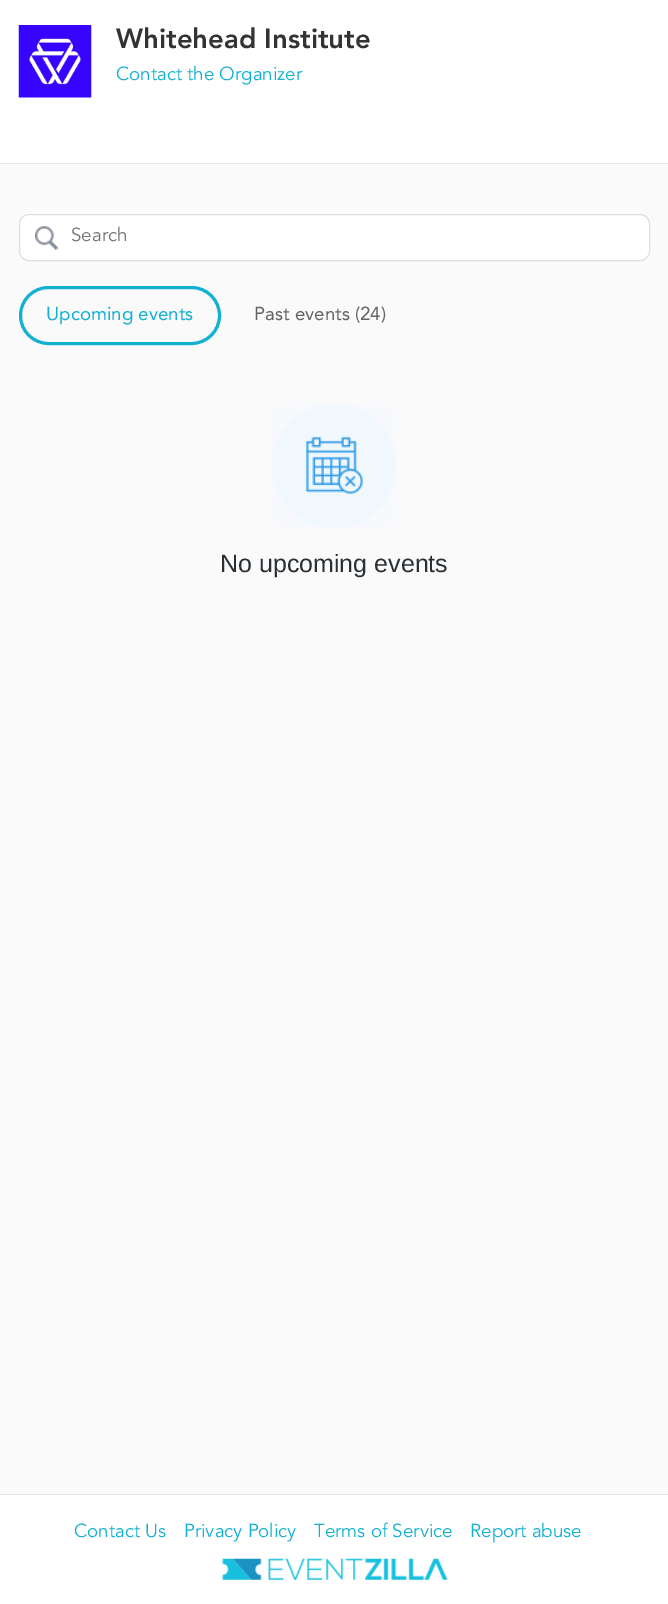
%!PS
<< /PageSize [668 1604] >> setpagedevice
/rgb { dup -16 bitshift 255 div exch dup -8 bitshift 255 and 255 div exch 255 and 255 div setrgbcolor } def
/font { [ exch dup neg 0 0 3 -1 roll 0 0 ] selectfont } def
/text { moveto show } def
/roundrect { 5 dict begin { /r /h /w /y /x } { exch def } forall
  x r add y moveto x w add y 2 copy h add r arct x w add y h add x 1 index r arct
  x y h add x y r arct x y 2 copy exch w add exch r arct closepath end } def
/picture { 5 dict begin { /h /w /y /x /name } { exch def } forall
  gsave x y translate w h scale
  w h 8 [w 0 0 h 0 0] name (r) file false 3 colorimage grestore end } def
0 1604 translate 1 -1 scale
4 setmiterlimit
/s1 { /Avenir-Black 27.5 font 16#333333 rgb } def
/s2 { /Avenir-Regular 18.75 font 16#13B1D1 rgb } def
/s3 { /Avenir-Regular 18.75 font 16#757575 rgb } def
/s4 { /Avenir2-Regular 18.75 font 16#13B1D1 rgb } def
/s5 { /Avenir2-Regular 18.75 font 16#646464 rgb } def
/s6 { /LiberationSans-Regular 25 font 16#292F33 rgb } def
16#FAFAFB rgb
0 0 668 1604 rectfill
16#FFFFFF rgb
0 0 668 163 rectfill
16#E5E5E5 rgb
0 163 668 1 rectfill
(pic1.raw) 18 25 74 73 picture
s1
(Whitehead Institute) 116 48 text
s2
(Contact the Organizer) 116 80 text
16#FFFFFF rgb
19.5 214.5 630 46 9.5 roundrect gsave fill grestore
16#DEDEDE rgb
stroke
(pic2.raw) 35 226 24 24 picture
s3
(Search) 71 241 text
16#13B1D1 rgb
3 setlinewidth
20.5 287.5 199 56 28 roundrect stroke
s4
(Upcoming events) 46 320 text
s5
(Past events \(24\)) 254 320 text
(pic3.raw) 271 403 126 126 picture
s6
(No upcoming events) 220 572 text
16#FFFFFF rgb
0 1495 668 109 rectfill
16#E5E5E5 rgb
0 1494 668 1 rectfill
s2
(Contact Us) 74 1537 text
(Privacy Policy) 184 1537 text
(Terms of Service) 314 1537 text
(Report abuse) 470 1537 text
(pic4.raw) 222 1558 226 22 picture
showpage
